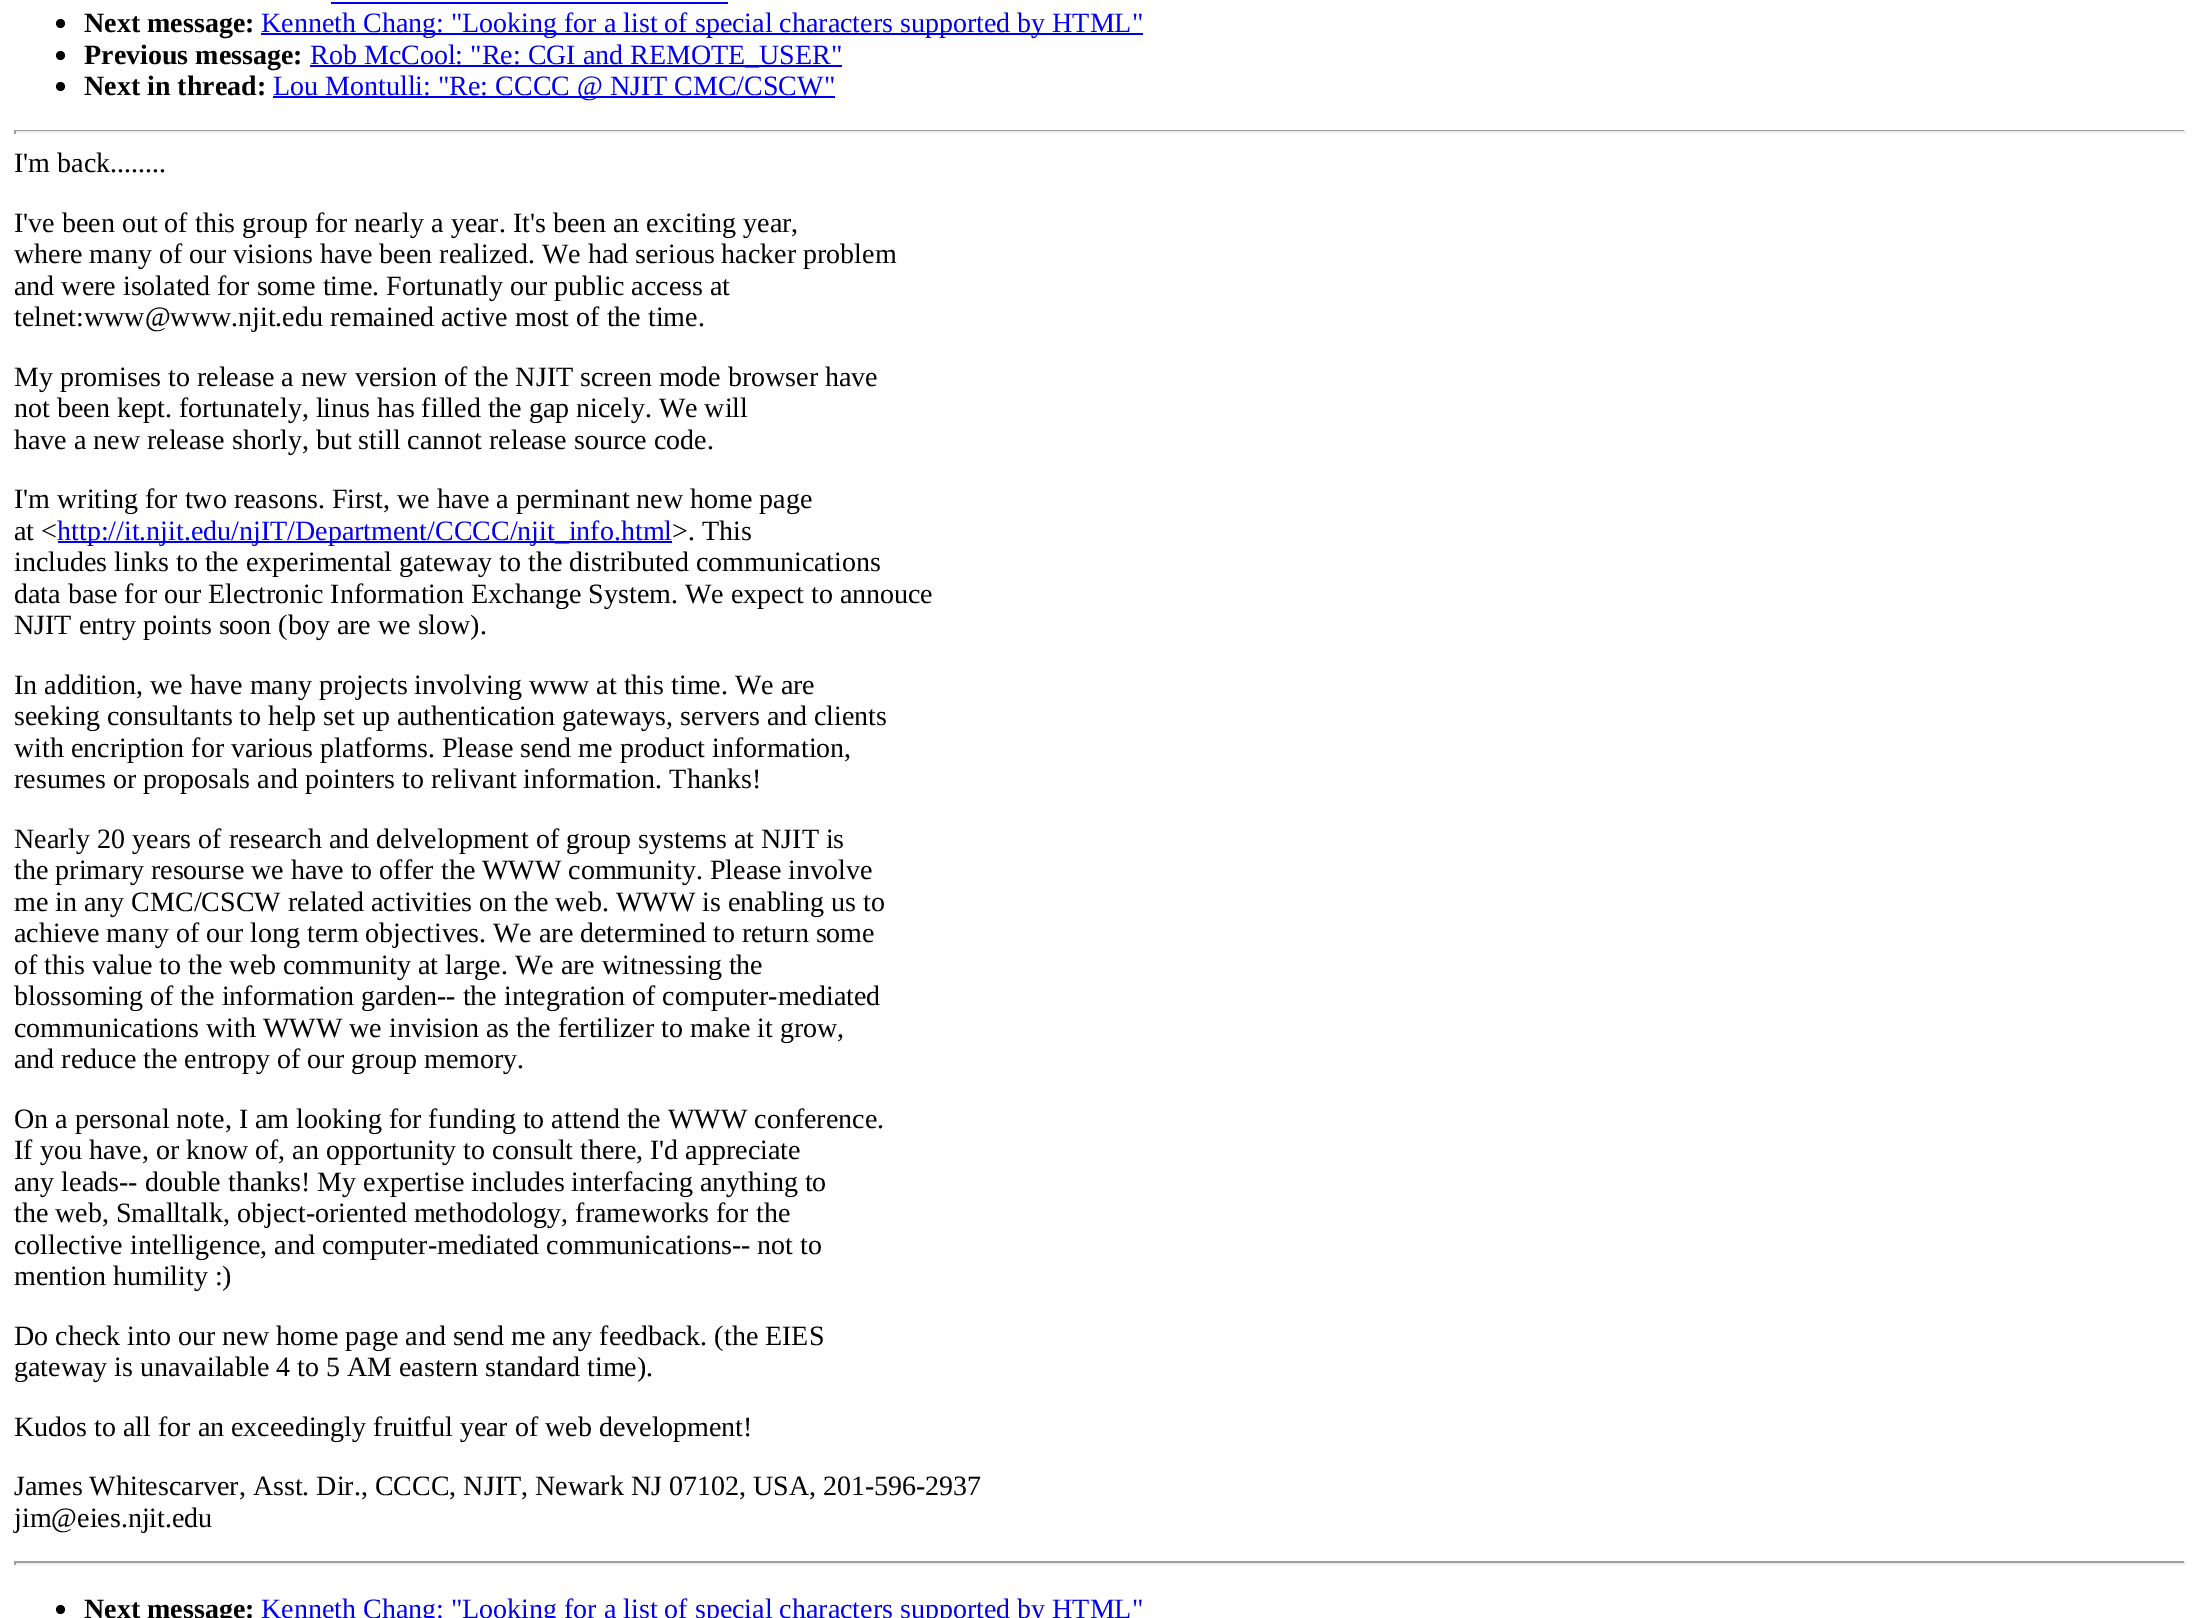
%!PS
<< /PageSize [2199 1618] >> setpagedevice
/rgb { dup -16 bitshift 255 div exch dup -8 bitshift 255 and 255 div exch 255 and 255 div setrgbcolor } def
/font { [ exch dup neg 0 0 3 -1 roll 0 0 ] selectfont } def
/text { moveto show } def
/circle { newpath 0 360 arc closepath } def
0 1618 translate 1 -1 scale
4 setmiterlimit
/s1 { /LiberationSerif-Bold 28 font 16#000000 rgb } def
/s2 { /LiberationSerif-Regular 28 font 16#0000EE rgb } def
/s3 { /LiberationSerif-Regular 28 font 16#000000 rgb } def
16#FFFFFF rgb
0 0 2199 1618 rectfill
16#0000EE rgb
331 2 397 2 rectfill
16#000000 rgb
60.5 23.5 4.5 circle fill
s1
(Next message:) 84 32 text
16#0000EE rgb
261 33 882 2 rectfill
s2
(Kenneth Chang: "Looking for a list of special characters supported by HTML") 261 32 text
16#000000 rgb
60.5 55.5 4.5 circle fill
s1
(Previous message:) 84 64 text
16#0000EE rgb
310 65 532 2 rectfill
s2
(Rob McCool: "Re: CGI and REMOTE_USER") 310 64 text
16#000000 rgb
60.5 86.5 4.5 circle fill
s1
(Next in thread:) 84 95 text
16#0000EE rgb
273 96 562 2 rectfill
s2
(Lou Montulli: "Re: CCCC @ NJIT CMC/CSCW") 273 95 text
16#9F9F9F rgb
14 130 2172 1 rectfill
16#EEEEEE rgb
2184 130 2 4 rectfill
14 131 2172 2 rectfill
16#9F9F9F rgb
14 130 2 4 rectfill
s3
(I'm back........) 14 172 text
(I've been out of this group for nearly a year. It's been an exciting year,) 14 232 text
(where many of our visions have been realized. We had serious hacker problem) 14 263 text
(and were isolated for some time. Fortunatly our public access at) 14 295 text
(telnet:www@www.njit.edu remained active most of the time.) 14 326 text
(My promises to release a new version of the NJIT screen mode browser have) 14 386 text
(not been kept. fortunately, linus has filled the gap nicely. We will) 14 417 text
(have a new release shorly, but still cannot release source code.) 14 449 text
(I'm writing for two reasons. First, we have a perminant new home page) 14 508 text
(at <) 14 540 text
16#0000EE rgb
58 541 614 2 rectfill
(http://it.njit.edu/njIT/Department/CCCC/njit_info.html) 57 540 text
s3
(>. This) 672 540 text
(includes links to the experimental gateway to the distributed communications) 14 571 text
(data base for our Electronic Information Exchange System. We expect to annouce) 14 603 text
(NJIT entry points soon \(boy are we slow\).) 14 634 text
(In addition, we have many projects involving www at this time. We are) 14 694 text
(seeking consultants to help set up authentication gateways, servers and clients) 14 725 text
(with encription for various platforms. Please send me product information,) 14 757 text
(resumes or proposals and pointers to relivant information. Thanks!) 14 788 text
(Nearly 20 years of research and delvelopment of group systems at NJIT is) 14 848 text
(the primary resourse we have to offer the WWW community. Please involve) 14 879 text
(me in any CMC/CSCW related activities on the web. WWW is enabling us to) 14 911 text
(achieve many of our long term objectives. We are determined to return some) 14 942 text
(of this value to the web community at large. We are witnessing the) 14 974 text
(blossoming of the information garden-- the integration of computer-mediated) 14 1005 text
(communications with WWW we invision as the fertilizer to make it grow,) 14 1037 text
(and reduce the entropy of our group memory.) 14 1068 text
(On a personal note, I am looking for funding to attend the WWW conference.) 14 1128 text
(If you have, or know of, an opportunity to consult there, I'd appreciate) 14 1159 text
(any leads-- double thanks! My expertise includes interfacing anything to) 14 1191 text
(the web, Smalltalk, object-oriented methodology, frameworks for the) 14 1222 text
(collective intelligence, and computer-mediated communications-- not to) 14 1254 text
(mention humility :\)) 14 1285 text
(Do check into our new home page and send me any feedback. \(the EIES) 14 1345 text
(gateway is unavailable 4 to 5 AM eastern standard time\).) 14 1376 text
(Kudos to all for an exceedingly fruitful year of web development!) 14 1436 text
(James Whitescarver, Asst. Dir., CCCC, NJIT, Newark NJ 07102, USA, 201-596-2937) 14 1495 text
(jim@eies.njit.edu) 14 1527 text
16#9F9F9F rgb
14 1561 2172 2 rectfill
16#EEEEEE rgb
2184 1561 2 4 rectfill
14 1563 2172 2 rectfill
16#9F9F9F rgb
14 1561 2 4 rectfill
16#000000 rgb
60.5 1609.5 4.5 circle fill
s1
(Next message:) 84 1618 text
s2
(Kenneth Chang: "Looking for a list of special characters supported by HTML") 261 1618 text
showpage
